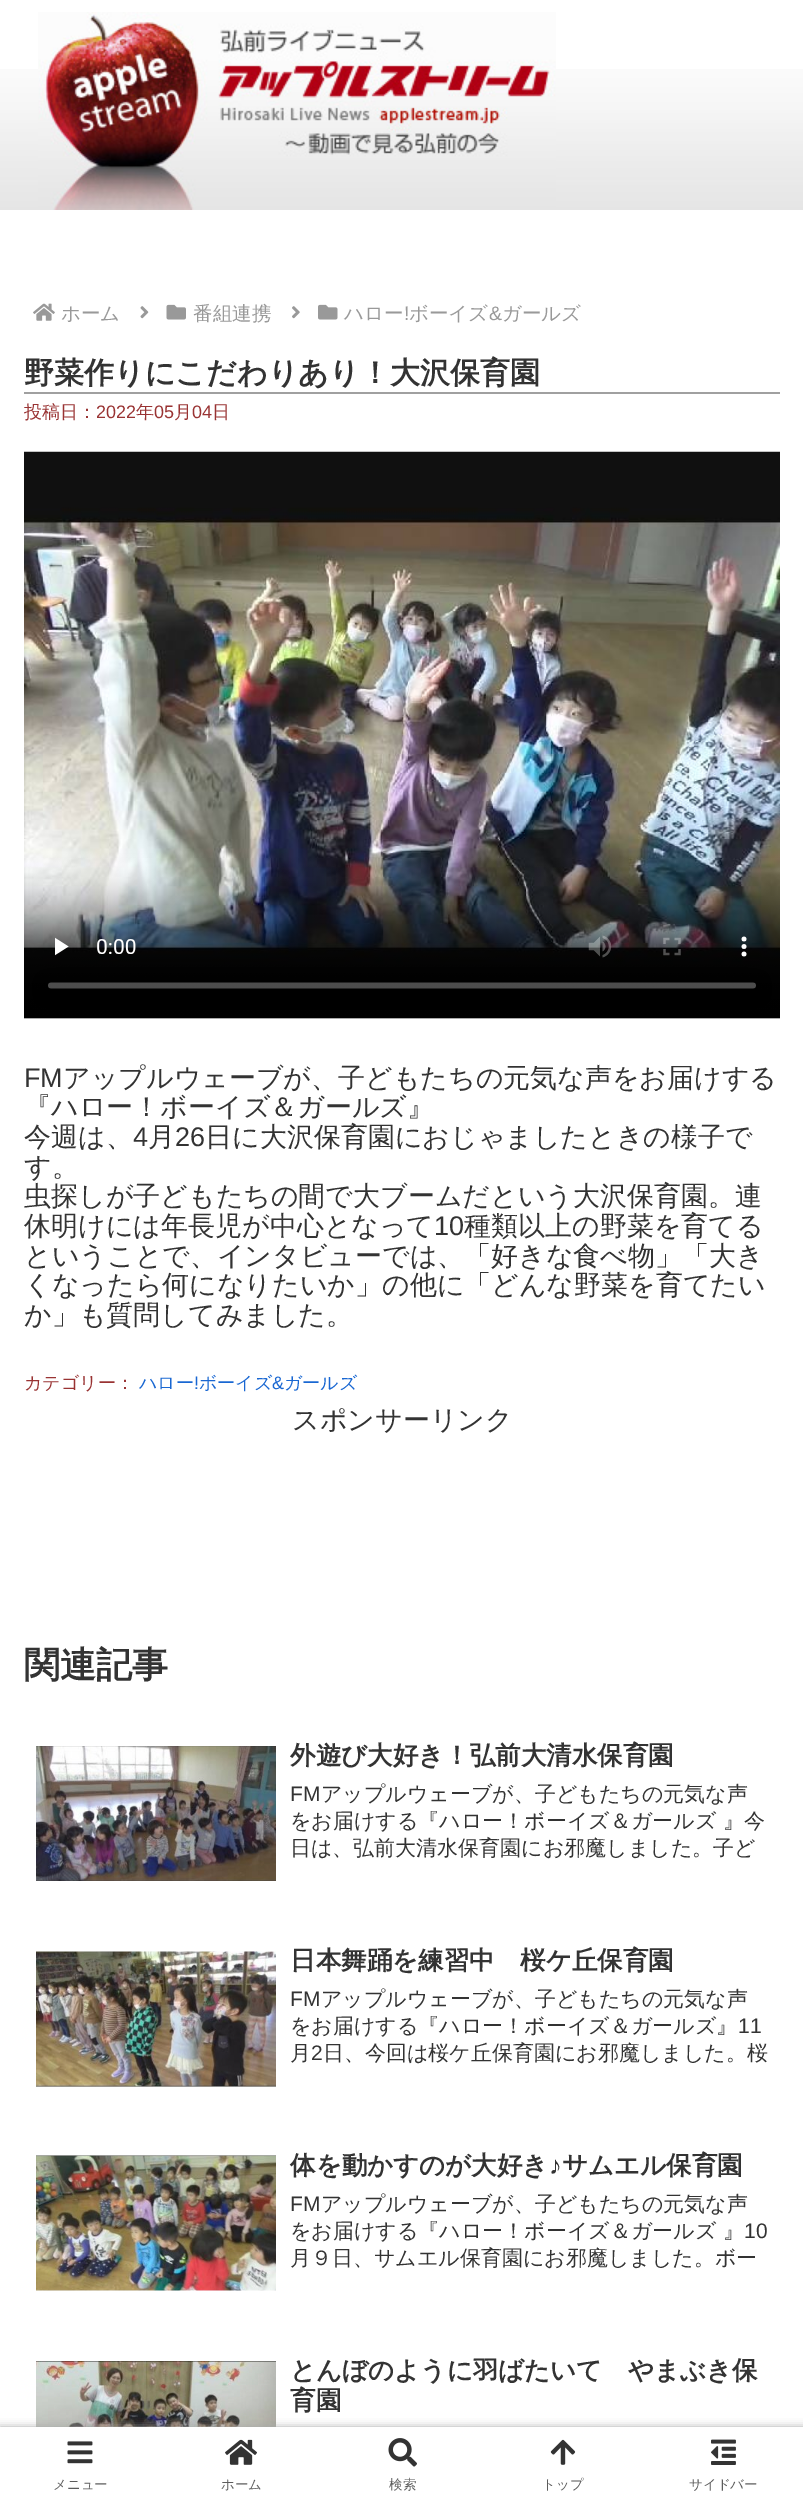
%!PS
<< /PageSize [803 2502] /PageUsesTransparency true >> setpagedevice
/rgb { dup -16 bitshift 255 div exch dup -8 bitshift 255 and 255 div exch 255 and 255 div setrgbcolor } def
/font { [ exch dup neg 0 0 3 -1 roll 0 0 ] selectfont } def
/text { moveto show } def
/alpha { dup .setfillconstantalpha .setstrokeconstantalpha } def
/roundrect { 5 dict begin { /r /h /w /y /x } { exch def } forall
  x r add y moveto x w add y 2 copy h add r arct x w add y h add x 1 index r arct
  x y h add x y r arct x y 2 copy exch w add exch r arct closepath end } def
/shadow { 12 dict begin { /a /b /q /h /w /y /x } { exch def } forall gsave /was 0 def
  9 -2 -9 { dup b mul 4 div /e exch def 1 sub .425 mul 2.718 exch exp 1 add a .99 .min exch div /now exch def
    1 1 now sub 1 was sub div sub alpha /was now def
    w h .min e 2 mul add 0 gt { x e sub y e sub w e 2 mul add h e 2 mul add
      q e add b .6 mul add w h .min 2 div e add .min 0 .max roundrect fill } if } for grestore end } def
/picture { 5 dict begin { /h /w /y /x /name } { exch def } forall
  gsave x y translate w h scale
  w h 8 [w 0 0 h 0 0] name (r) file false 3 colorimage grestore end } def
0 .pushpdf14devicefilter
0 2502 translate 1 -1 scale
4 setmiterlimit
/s1 { /WenQuanYiZenHei-Medium 19.5 font 16#999999 rgb } def
/s2 { /LiberationSans-Regular 19.5 font 16#999999 rgb } def
/s3 { /WenQuanYiZenHei-Bold 30 font 16#333333 rgb } def
/s4 { /WenQuanYiZenHei-Medium 18 font 16#993333 rgb } def
/s5 { /LiberationSans-Regular 18 font 16#993333 rgb } def
/s6 { /LiberationSans-Regular 27 font 16#333333 rgb } def
/s7 { /WenQuanYiZenHei-Medium 27 font 16#333333 rgb } def
/s8 { /WenQuanYiZenHei-Medium 18 font 16#1967D2 rgb } def
/s9 { /LiberationSans-Regular 18 font 16#1967D2 rgb } def
/s10 { /WenQuanYiZenHei-Bold 36 font 16#333333 rgb } def
/s11 { /WenQuanYiZenHei-Bold 25.5 font 16#333333 rgb } def
/s12 { /LiberationSans-Regular 21 font 16#333333 rgb } def
/s13 { /WenQuanYiZenHei-Medium 21 font 16#333333 rgb } def
/s14 { /LiberationSans-Bold 25.5 font 16#333333 rgb } def
/s15 { /WenQuanYiZenHei-Medium 13.5 font 16#5C5C5C rgb } def
16#FFFFFF rgb
0 0 803 2502 rectfill
(pic1.raw) 0 69 803 141 picture
(pic2.raw) 38 12 518 198 picture
(pic3.raw) 33 303 22 18 picture
s1
(ホーム) 61 320 text
(pic4.raw) 140 306 9 13 picture
(pic5.raw) 166 304 20 16 picture
(番組連携) 193 320 text
(pic6.raw) 292 306 8 13 picture
(pic7.raw) 318 304 20 16 picture
(ハロー) 344 320 text
s2
(!) 404 320 text
s1
(ボーイズ) 409 320 text
s2
(&) 489 320 text
s1
(ガールズ) 502 320 text
16#A0A0A0 rgb
24 392 756 2 rectfill
s3
(野菜作りにこだわりあり！大沢保育園) 24 383 text
s4
(投稿日：) 24 418 text
s5
(2022) 96 418 text
s4
(年) 136 418 text
s5
(05) 154 418 text
s4
(月) 174 418 text
s5
(04) 192 418 text
s4
(日) 212 418 text
(pic8.raw) 24 451 756 568 picture
s6
(FM) 24 1087 text
s7
(アップルウェーブが、子どもたちの元気な声をお届けする) 63 1087 text
(『ハロー！ボーイズ＆ガールズ』) 24 1116 text
(今週は、) 24 1146 text
s6
(4) 133 1146 text
s7
(月) 148 1146 text
s6
(26) 175 1146 text
s7
(日に大沢保育園におじゃましたときの様子で) 205 1146 text
(す。) 24 1176 text
(虫探しが子どもたちの間で大ブームだという大沢保育園。連) 24 1205 text
(休明けには年長児が中心となって) 24 1235 text
s6
(10) 434 1235 text
s7
(種類以上の野菜を育てる) 464 1235 text
(ということで、インタビューでは、「好きな食べ物」「大き) 24 1265 text
(くなったら何になりたいか」の他に「どんな野菜を育てたい) 24 1294 text
(か」も質問してみました。) 24 1324 text
s4
(カテゴリー：) 24 1389 text
s8
(ハロー) 139 1389 text
s9
(!) 194 1389 text
s8
(ボーイズ) 199 1389 text
s9
(&) 272 1389 text
s8
(ガールズ) 284 1389 text
s7
(スポンサーリンク) 292 1429 text
s10
(関連記事) 24 1677 text
(pic9.raw) 36 1746 240 135 picture
s11
(外遊び大好き！弘前大清水保育園) 290 1764 text
s12
(FM) 290 1801 text
s13
(アップルウェーブが、子どもたちの元気な声) 321 1801 text
(をお届けする『ハロー！ボーイズ＆ガールズ 』今) 290 1828 text
(日は、弘前大清水保育園にお邪魔しました。子ど) 290 1855 text
(pic10.raw) 36 1951 240 136 picture
s11
(日本舞踊を練習中　桜ケ丘保育園) 290 1969 text
s12
(FM) 290 2006 text
s13
(アップルウェーブが、子どもたちの元気な声) 321 2006 text
(をお届けする『ハロー！ボーイズ＆ガールズ』) 290 2033 text
s12
(11) 738 2033 text
s13
(月) 290 2060 text
s12
(2) 311 2060 text
s13
(日、今回は桜ケ丘保育園にお邪魔しました。桜) 323 2060 text
(pic11.raw) 36 2155 240 136 picture
s11
(体を動かすのが大好き) 290 2174 text
s14
(♪) 549 2174 text
s11
(サムエル保育園) 562 2174 text
s12
(FM) 290 2211 text
s13
(アップルウェーブが、子どもたちの元気な声) 321 2211 text
(をお届けする『ハロー！ボーイズ＆ガールズ 』) 290 2238 text
s12
(10) 744 2238 text
s13
(月９日、サムエル保育園にお邪魔しました。ボー) 290 2265 text
(pic12.raw) 36 2361 240 66 picture
s11
(とんぼのように羽ばたいて　やまぶき保) 290 2379 text
(育園) 290 2409 text
16#A9A9A9 rgb
0 2427 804 75 0 4 1 shadow
16#FFFFFF rgb
0 2427 803 75 rectfill
(pic13.raw) 67 2441 26 23 picture
s15
(メニュー) 53 2489 text
(pic14.raw) 225 2439 32 26 picture
(ホーム) 221 2489 text
(pic15.raw) 388 2438 29 29 picture
(検索) 389 2489 text
(pic16.raw) 550 2439 26 26 picture
(トップ) 542 2489 text
(pic17.raw) 711 2439 25 26 picture
(サイドバー) 689 2489 text
.poppdf14devicefilter showpage
